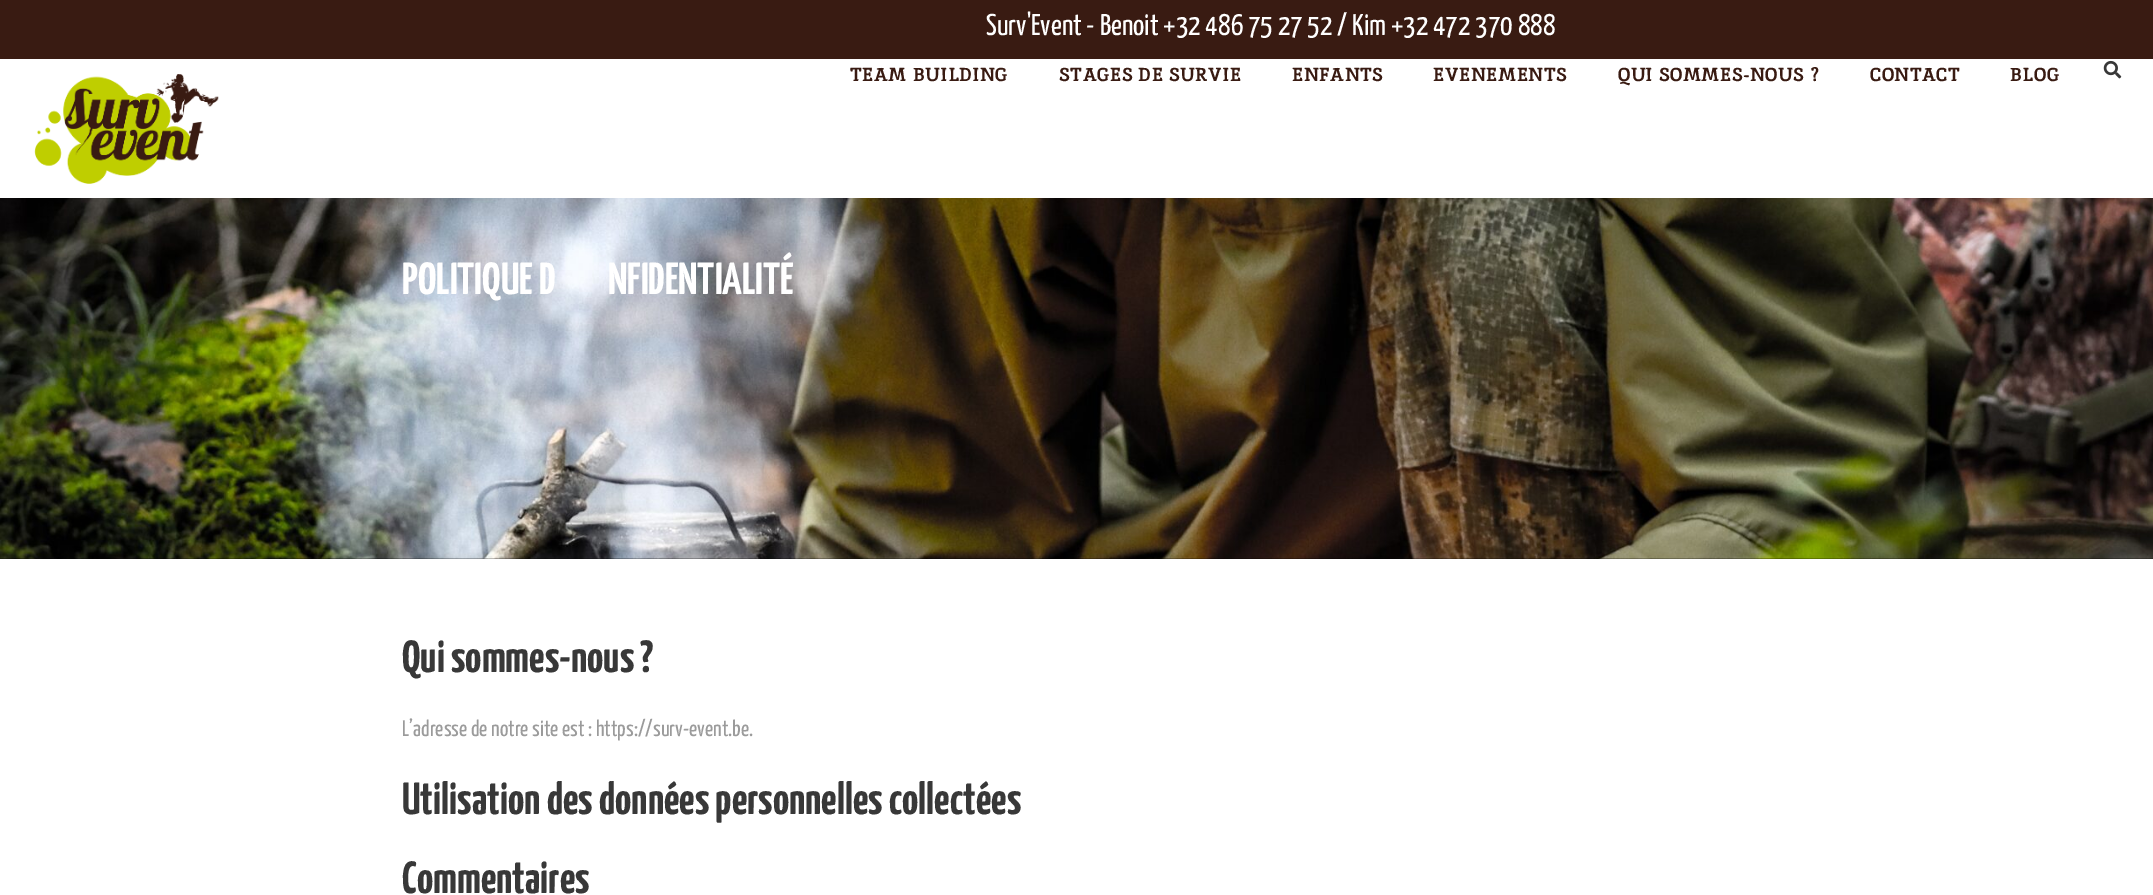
%!PS
<< /PageSize [2153 895] >> setpagedevice
/rgb { dup -16 bitshift 255 div exch dup -8 bitshift 255 and 255 div exch 255 and 255 div setrgbcolor } def
/font { [ exch dup neg 0 0 3 -1 roll 0 0 ] selectfont } def
/text { moveto show } def
/picture { 5 dict begin { /h /w /y /x /name } { exch def } forall
  gsave x y translate w h scale
  w h 8 [w 0 0 h 0 0] name (r) file false 3 colorimage grestore end } def
0 895 translate 1 -1 scale
4 setmiterlimit
/s1 { /YanoneKaffeesatz-Regular 30 font 16#FFFFFF rgb } def
/s2 { /YanoneKaffeesatz-Bold 45 font 16#FFFFFF rgb } def
/s3 { /YanoneKaffeesatz-Bold 45 font 16#383838 rgb } def
/s4 { /YanoneKaffeesatz-Regular 22.5 font 16#9B9B9B rgb } def
16#FFFFFF rgb
0 0 2153 895 rectfill
16#391B12 rgb
0 0 2153 59 rectfill
s1
(Surv'Event - Benoit +32 486 75 27 52 / Kim +32 472 370 888) 986 35 text
(pic1.raw) 34 74 185 110 picture
/Inika-Bold 18.75 font
16#391B12 rgb
850 81 moveto 0.6 0 (TEAM BUILDING) ashow
1059 81 moveto 0.6 0 (STAGES DE SURVIE) ashow
1292 81 moveto 0.6 0 (ENFANTS) ashow
1433 81 moveto 0.6 0 (EVENEMENTS) ashow
1618 81 moveto 0.6 0 (QUI SOMMES-NOUS ?) ashow
1870 81 moveto 0.6 0 (CONTACT) ashow
2010 81 moveto 0.6 0 (BLOG) ashow
(pic2.raw) 2103 60 19 19 picture
(pic3.raw) 0 198 2153 361 picture
s2
(POLITIQUE D) 402 294 text
(NFIDENTIALITÉ) 608 294 text
s3
(Qui sommes-nous ?) 402 672 text
s4
(L’adresse de notre site est : https://surv-event.be.) 402 736 text
s3
(Utilisation des données personnelles collectées) 402 814 text
(Commentaires) 402 893 text
showpage
